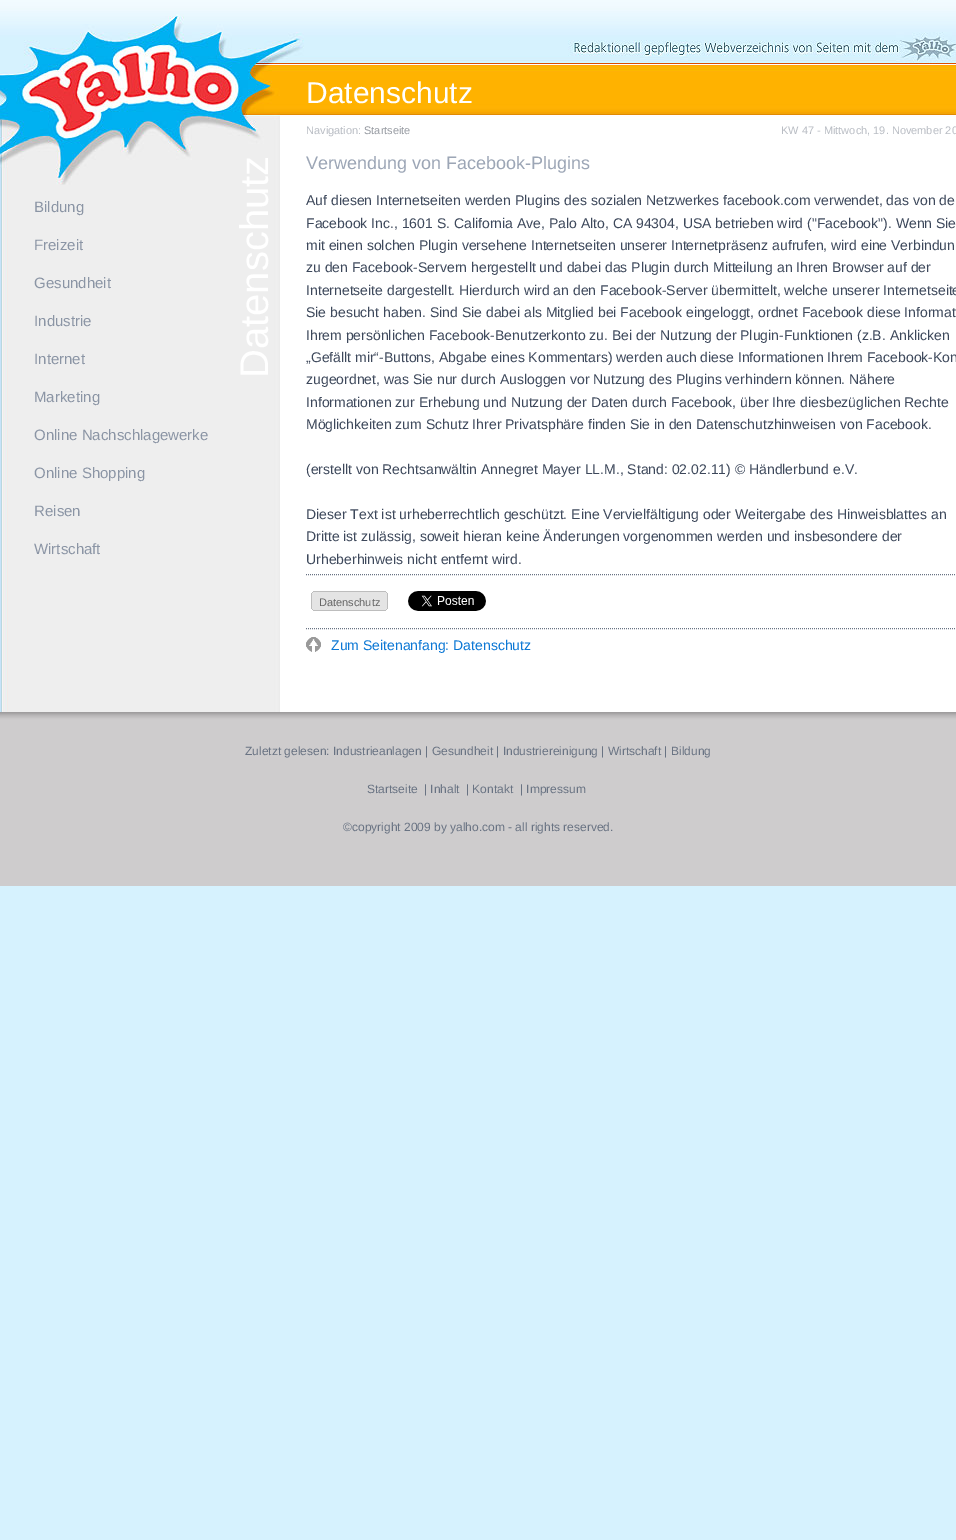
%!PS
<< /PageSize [956 1540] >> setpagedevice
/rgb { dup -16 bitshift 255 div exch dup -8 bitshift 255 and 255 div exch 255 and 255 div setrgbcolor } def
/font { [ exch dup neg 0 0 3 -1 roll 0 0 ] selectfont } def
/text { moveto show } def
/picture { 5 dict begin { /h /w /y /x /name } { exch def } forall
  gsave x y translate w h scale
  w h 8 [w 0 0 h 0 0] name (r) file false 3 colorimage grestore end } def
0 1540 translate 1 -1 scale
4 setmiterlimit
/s1 { /LiberationSans-Regular 15 font 16#8B95A5 rgb } def
/s2 { /LiberationSans-Regular 30 font 16#FFFFFF rgb } def
/s3 { /LiberationSans-Regular 18 font 16#9CA6B6 rgb } def
/s4 { /LiberationSans-Regular 14 font 16#3D485B rgb } def
/s5 { /LiberationSans-Regular 11 font 16#666666 rgb } def
/s6 { /LiberationSans-Regular 14 font 16#0B77D5 rgb } def
/s7 { /LiberationSans-Regular 11 font 16#B9BDC4 rgb } def
/s8 { /LiberationSans-Regular 11 font 16#979BA2 rgb } def
/s9 { /LiberationSans-Regular 12 font 16#697383 rgb } def
16#D6F2FE rgb
0 0 956 1540 rectfill
(pic1.raw) 0 0 956 14 picture
(pic2.raw) 0 185 956 527 picture
s1
(Bildung) 34 212 text
(Freizeit) 34 250 text
(Gesundheit) 34 288 text
(Industrie) 34 326 text
(Internet) 34 364 text
(Marketing) 34 402 text
(Online Nachschlagewerke) 34 440 text
(Online Shopping) 34 478 text
(Reisen) 34 516 text
(Wirtschaft) 34 554 text
(pic6.raw) 0 14 956 171 picture
s2
(Datenschutz) 306 103 text
/LiberationSans-Regular 40 font
gsave 268 378 translate -90 rotate 0 0 moveto (Datenschutz) show grestore
s3
(Verwendung von Facebook-Plugins) 306 169 text
s4
(Auf diesen Internetseiten werden Plugins des sozialen Netzwerkes facebook.com verwendet, das von de) 306 205 text
(Facebook Inc., 1601 S. California Ave, Palo Alto, CA 94304, USA betrieben wird \("Facebook"\). Wenn Sie) 306 228 text
(mit einen solchen Plugin versehene Internetseiten unserer Internetpräsenz aufrufen, wird eine Verbindun) 306 250 text
(zu den Facebook-Servern hergestellt und dabei das Plugin durch Mitteilung an Ihren Browser auf der) 306 272 text
(Internetseite dargestellt. Hierdurch wird an den Facebook-Server übermittelt, welche unserer Internetseite) 306 295 text
(Sie besucht haben. Sind Sie dabei als Mitglied bei Facebook eingeloggt, ordnet Facebook diese Informat) 306 317 text
(Ihrem persönlichen Facebook-Benutzerkonto zu. Bei der Nutzung der Plugin-Funktionen \(z.B. Anklicken) 306 340 text
(„Gefällt mir“-Buttons, Abgabe eines Kommentars\) werden auch diese Informationen Ihrem Facebook-Kon) 306 362 text
(zugeordnet, was Sie nur durch Ausloggen vor Nutzung des Plugins verhindern können. Nähere) 306 384 text
(Informationen zur Erhebung und Nutzung der Daten durch Facebook, über Ihre diesbezüglichen Rechte) 306 407 text
(Möglichkeiten zum Schutz Ihrer Privatsphäre finden Sie in den Datenschutzhinweisen von Facebook.) 306 429 text
(\(erstellt von Rechtsanwältin Annegret Mayer LL.M., Stand: 02.02.11\) © Händlerbund e.V.) 306 474 text
(Dieser Text ist urheberrechtlich geschützt. Eine Vervielfältigung oder Weitergabe des Hinweisblattes an) 306 519 text
(Dritte ist zulässig, soweit hieran keine Änderungen vorgenommen werden und insbesondere der) 306 541 text
(Urheberhinweis nicht entfernt wird.) 306 564 text
16#697383 rgb
[1 1] 0 setdash
306 574.5 moveto 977 574.5 lineto stroke
(pic3.raw) 311 591 77 20 picture
s5
(Datenschutz) 319 606 text
(pic4.raw) 408 591 78 20 picture
16#697383 rgb
306 628.5 moveto 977 628.5 lineto stroke
(pic5.raw) 306 637 15 15 picture
s6
(Zum Seitenanfang: Datenschutz) 331 650 text
s7
(Navigation:) 306 134 text
s8
(Startseite) 364 134 text
s7
(KW 47 - Mittwoch, 19. November 20) 781 134 text
(pic7.raw) 0 712 956 174 picture
s9
(Zuletzt gelesen: Industrieanlagen | Gesundheit | Industriereinigung | Wirtschaft | Bildung) 245 755 text
(Startseite) 367 793 text
(| Inhalt) 424 793 text
(| Kontakt) 466 793 text
(| Impressum) 520 793 text
(©copyright 2009 by yalho.com - all rights reserved.) 343 831 text
showpage
